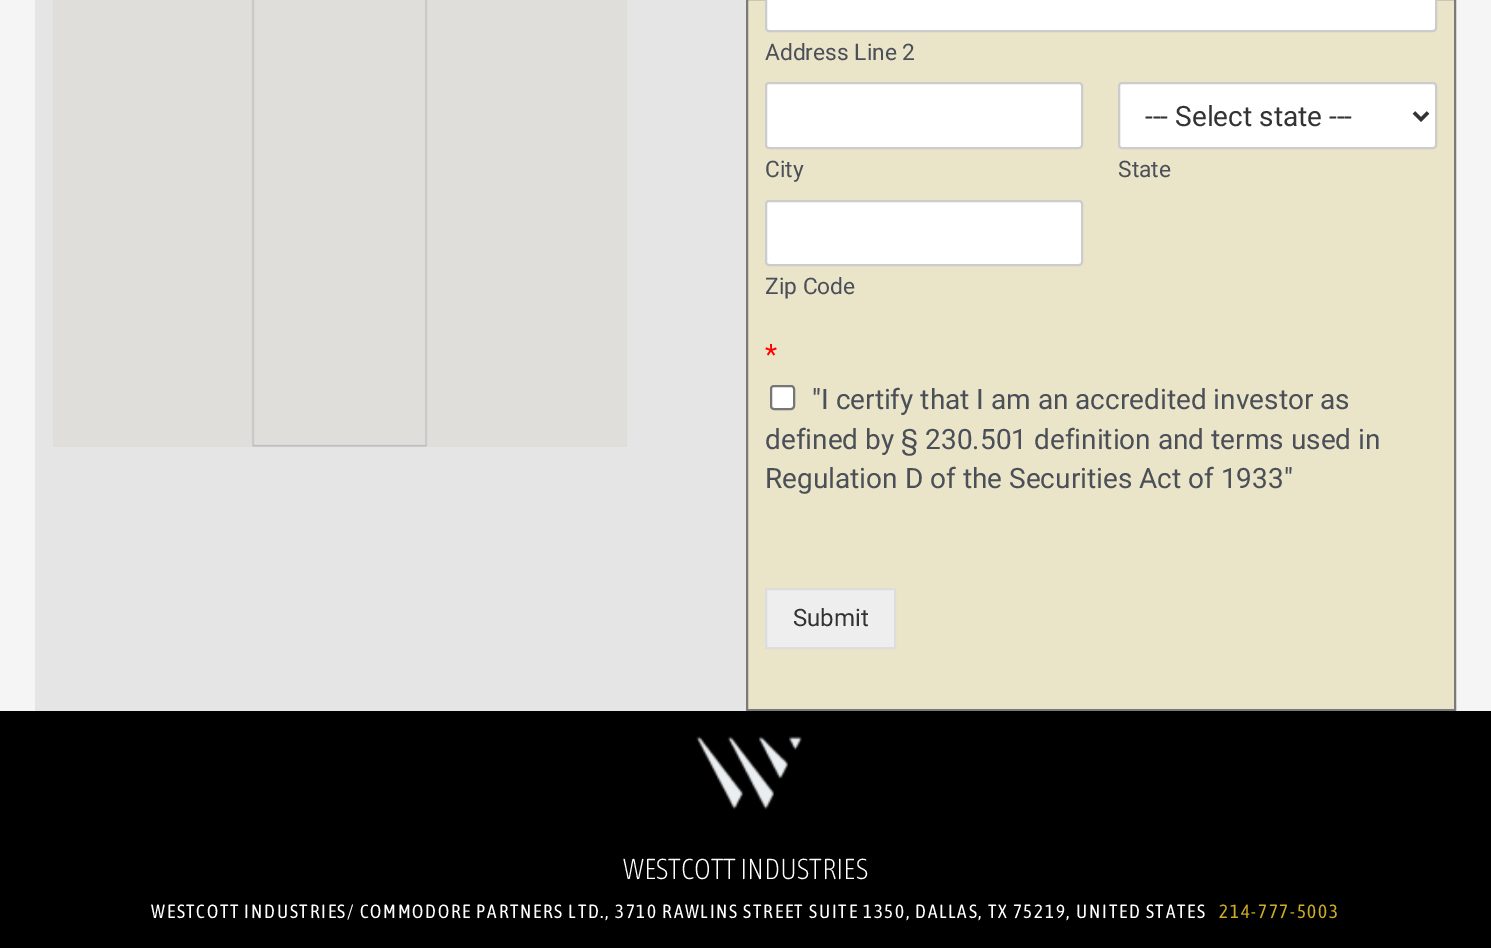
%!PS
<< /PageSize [1491 948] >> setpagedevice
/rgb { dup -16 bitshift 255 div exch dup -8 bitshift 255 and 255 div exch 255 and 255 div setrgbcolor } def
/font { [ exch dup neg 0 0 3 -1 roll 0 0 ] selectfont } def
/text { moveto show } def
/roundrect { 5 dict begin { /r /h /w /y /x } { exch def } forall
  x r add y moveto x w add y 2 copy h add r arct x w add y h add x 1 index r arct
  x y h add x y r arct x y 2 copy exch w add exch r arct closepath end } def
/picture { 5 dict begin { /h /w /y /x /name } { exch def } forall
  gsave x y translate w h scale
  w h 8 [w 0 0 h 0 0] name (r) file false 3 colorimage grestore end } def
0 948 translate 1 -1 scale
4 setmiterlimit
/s1 { /Roboto-Regular 22.75 font 16#4B4F58 rgb } def
/s2 { /Roboto-Regular 28 font 16#333333 rgb } def
/s3 { /Roboto-Regular 28 font 16#FF0000 rgb } def
/s4 { /Roboto-Regular 28 font 16#4B4F58 rgb } def
/s5 { /Roboto-Regular 24 font 16#333333 rgb } def
/s6 { /AsapCondensed-ExtraLight 28.75 font 16#FFFFFF rgb } def
16#F5F5F5 rgb
0 0 1491 948 rectfill
16#E5E5E5 rgb
35 0 711 711 rectfill
(pic1.raw) 53 0 574 447 picture
16#EAE4C9 rgb
747 -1 moveto 1455 -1 lineto 1455 710 lineto 747 710 lineto closepath gsave fill grestore
16#7A7A7A rgb
2 setlinewidth
stroke
16#FFFFFF rgb
766 -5 670 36 3 roundrect gsave fill grestore
16#CCCCCC rgb
stroke
s1
(Address Line 2) 765 60 text
16#FFFFFF rgb
766 83 316 65 3 roundrect gsave fill grestore
16#CCCCCC rgb
stroke
s1
(City) 765 177 text
16#FFFFFF rgb
1119 83 317 65 3 roundrect gsave fill grestore
16#CCCCCC rgb
stroke
16#333333 rgb
3.5 setlinewidth
1414 112.5 moveto 1421 119.5 lineto 1428 112.5 lineto stroke
s2
(--- Select state ---) 1145 126 text
s1
(State) 1118 177 text
16#FFFFFF rgb
766 201 316 64 3 roundrect gsave fill grestore
16#CCCCCC rgb
2 setlinewidth
stroke
s1
(Zip Code) 765 294 text
s3
(*) 765 364 text
16#FFFFFF rgb
771 386 23 23 3 roundrect gsave fill grestore
16#767676 rgb
stroke
s4
("I certify that I am an accredited investor as) 812 409 text
(defined by § 230.501 definition and terms used in) 765 449 text
(Regulation D of the Securities Act of 1933") 765 488 text
16#EEEEEE rgb
766 589 moveto 895 589 lineto 895 648 lineto 766 648 lineto closepath gsave fill grestore
16#DDDDDD rgb
stroke
s5
(Submit) 793 626 text
16#000000 rgb
0 711 1491 237 rectfill
(pic2.raw) 696 736 106 74 picture
s6
(WESTCOTT INDUSTRIES) 623 879 text
/AsapCondensed-Regular 19.15 font
151 918 moveto 1.75 0 (WESTCOTT INDUSTRIES/ COMMODORE PARTNERS LTD., 3710 RAWLINS STREET SUITE 1350, DALLAS, TX 75219, UNITED STATES) ashow
16#CCAC29 rgb
1219 918 moveto 1.75 0 (214-777-5003) ashow
showpage
